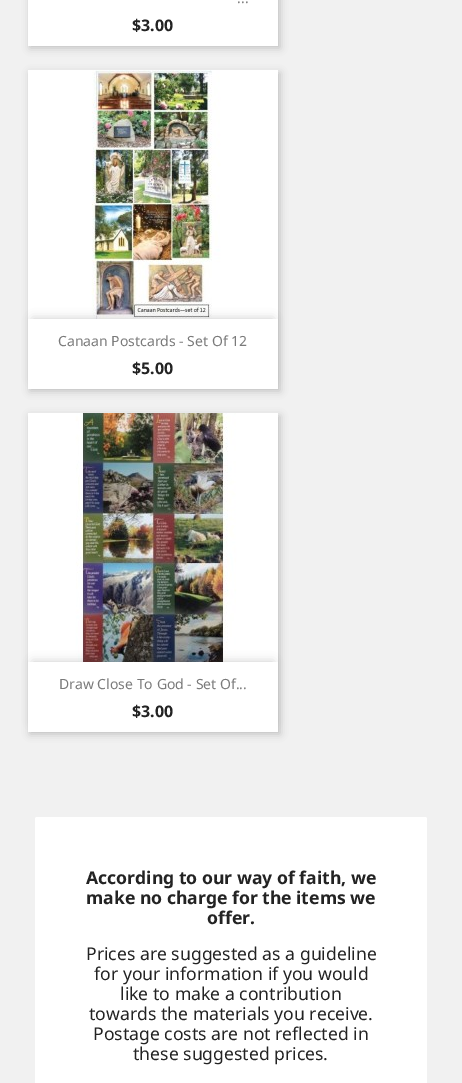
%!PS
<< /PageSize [462 1083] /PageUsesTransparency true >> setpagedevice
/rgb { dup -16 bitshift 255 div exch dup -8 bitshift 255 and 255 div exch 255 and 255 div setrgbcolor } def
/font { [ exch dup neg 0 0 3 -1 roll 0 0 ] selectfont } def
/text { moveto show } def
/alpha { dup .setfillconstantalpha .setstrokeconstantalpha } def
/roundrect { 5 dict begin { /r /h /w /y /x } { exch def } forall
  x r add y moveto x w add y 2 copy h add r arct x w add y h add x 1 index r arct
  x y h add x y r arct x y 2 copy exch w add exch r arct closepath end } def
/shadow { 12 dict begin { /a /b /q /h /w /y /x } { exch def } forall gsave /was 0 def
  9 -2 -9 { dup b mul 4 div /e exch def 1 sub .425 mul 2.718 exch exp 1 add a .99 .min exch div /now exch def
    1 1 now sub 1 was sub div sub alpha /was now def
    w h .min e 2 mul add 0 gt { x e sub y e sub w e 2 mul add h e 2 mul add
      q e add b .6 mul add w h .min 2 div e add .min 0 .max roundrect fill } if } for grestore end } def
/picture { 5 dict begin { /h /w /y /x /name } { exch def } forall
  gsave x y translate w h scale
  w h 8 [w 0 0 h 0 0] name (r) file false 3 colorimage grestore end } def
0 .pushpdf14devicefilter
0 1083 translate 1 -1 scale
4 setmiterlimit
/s1 { /NotoSans-Regular 14 font 16#7A7A7A rgb } def
/s2 { /NotoSans-Bold 16 font 16#232323 rgb } def
/s3 { /NotoSans-Bold 17.6 font 16#232323 rgb } def
/s4 { /NotoSans-Regular 17.6 font 16#232323 rgb } def
16#F1F1F1 rgb
0 0 462 1083 rectfill
16#000000 rgb
30 -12 250 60 0 4 0.2 shadow
16#FFFFFF rgb
28 0 250 46 rectfill
s1
(...) 237 3 text
s2
($3.00) 132 31 text
16#000000 rgb
30 73 250 318 0 4 0.2 shadow
(pic1.raw) 28 70 250 249 picture
33 319 240 60 0 5 0.2 shadow
16#FFFFFF rgb
28 319 250 70 rectfill
s1
(Canaan Postcards - Set Of 12) 58 346 text
s2
($5.00) 132 374 text
16#000000 rgb
30 416 250 318 0 4 0.2 shadow
(pic2.raw) 28 413 250 249 picture
33 662 240 60 0 5 0.2 shadow
16#FFFFFF rgb
28 662 250 70 rectfill
s1
(Draw Close To God - Set Of...) 59 689 text
s2
($3.00) 132 717 text
16#FFFFFF rgb
35 817 392 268 2 roundrect fill
s3
(According to our way of faith, we) 86 884 text
(make no charge for the items we) 86 904 text
(offer.) 207 924 text
s4
(Prices are suggested as a guideline) 86 960 text
(for your information if you would) 94 980 text
(like to make a contribution) 120 1000 text
(towards the materials you receive.) 89 1020 text
(Postage costs are not reflected in) 93 1040 text
(these suggested prices.) 133 1060 text
.poppdf14devicefilter showpage
